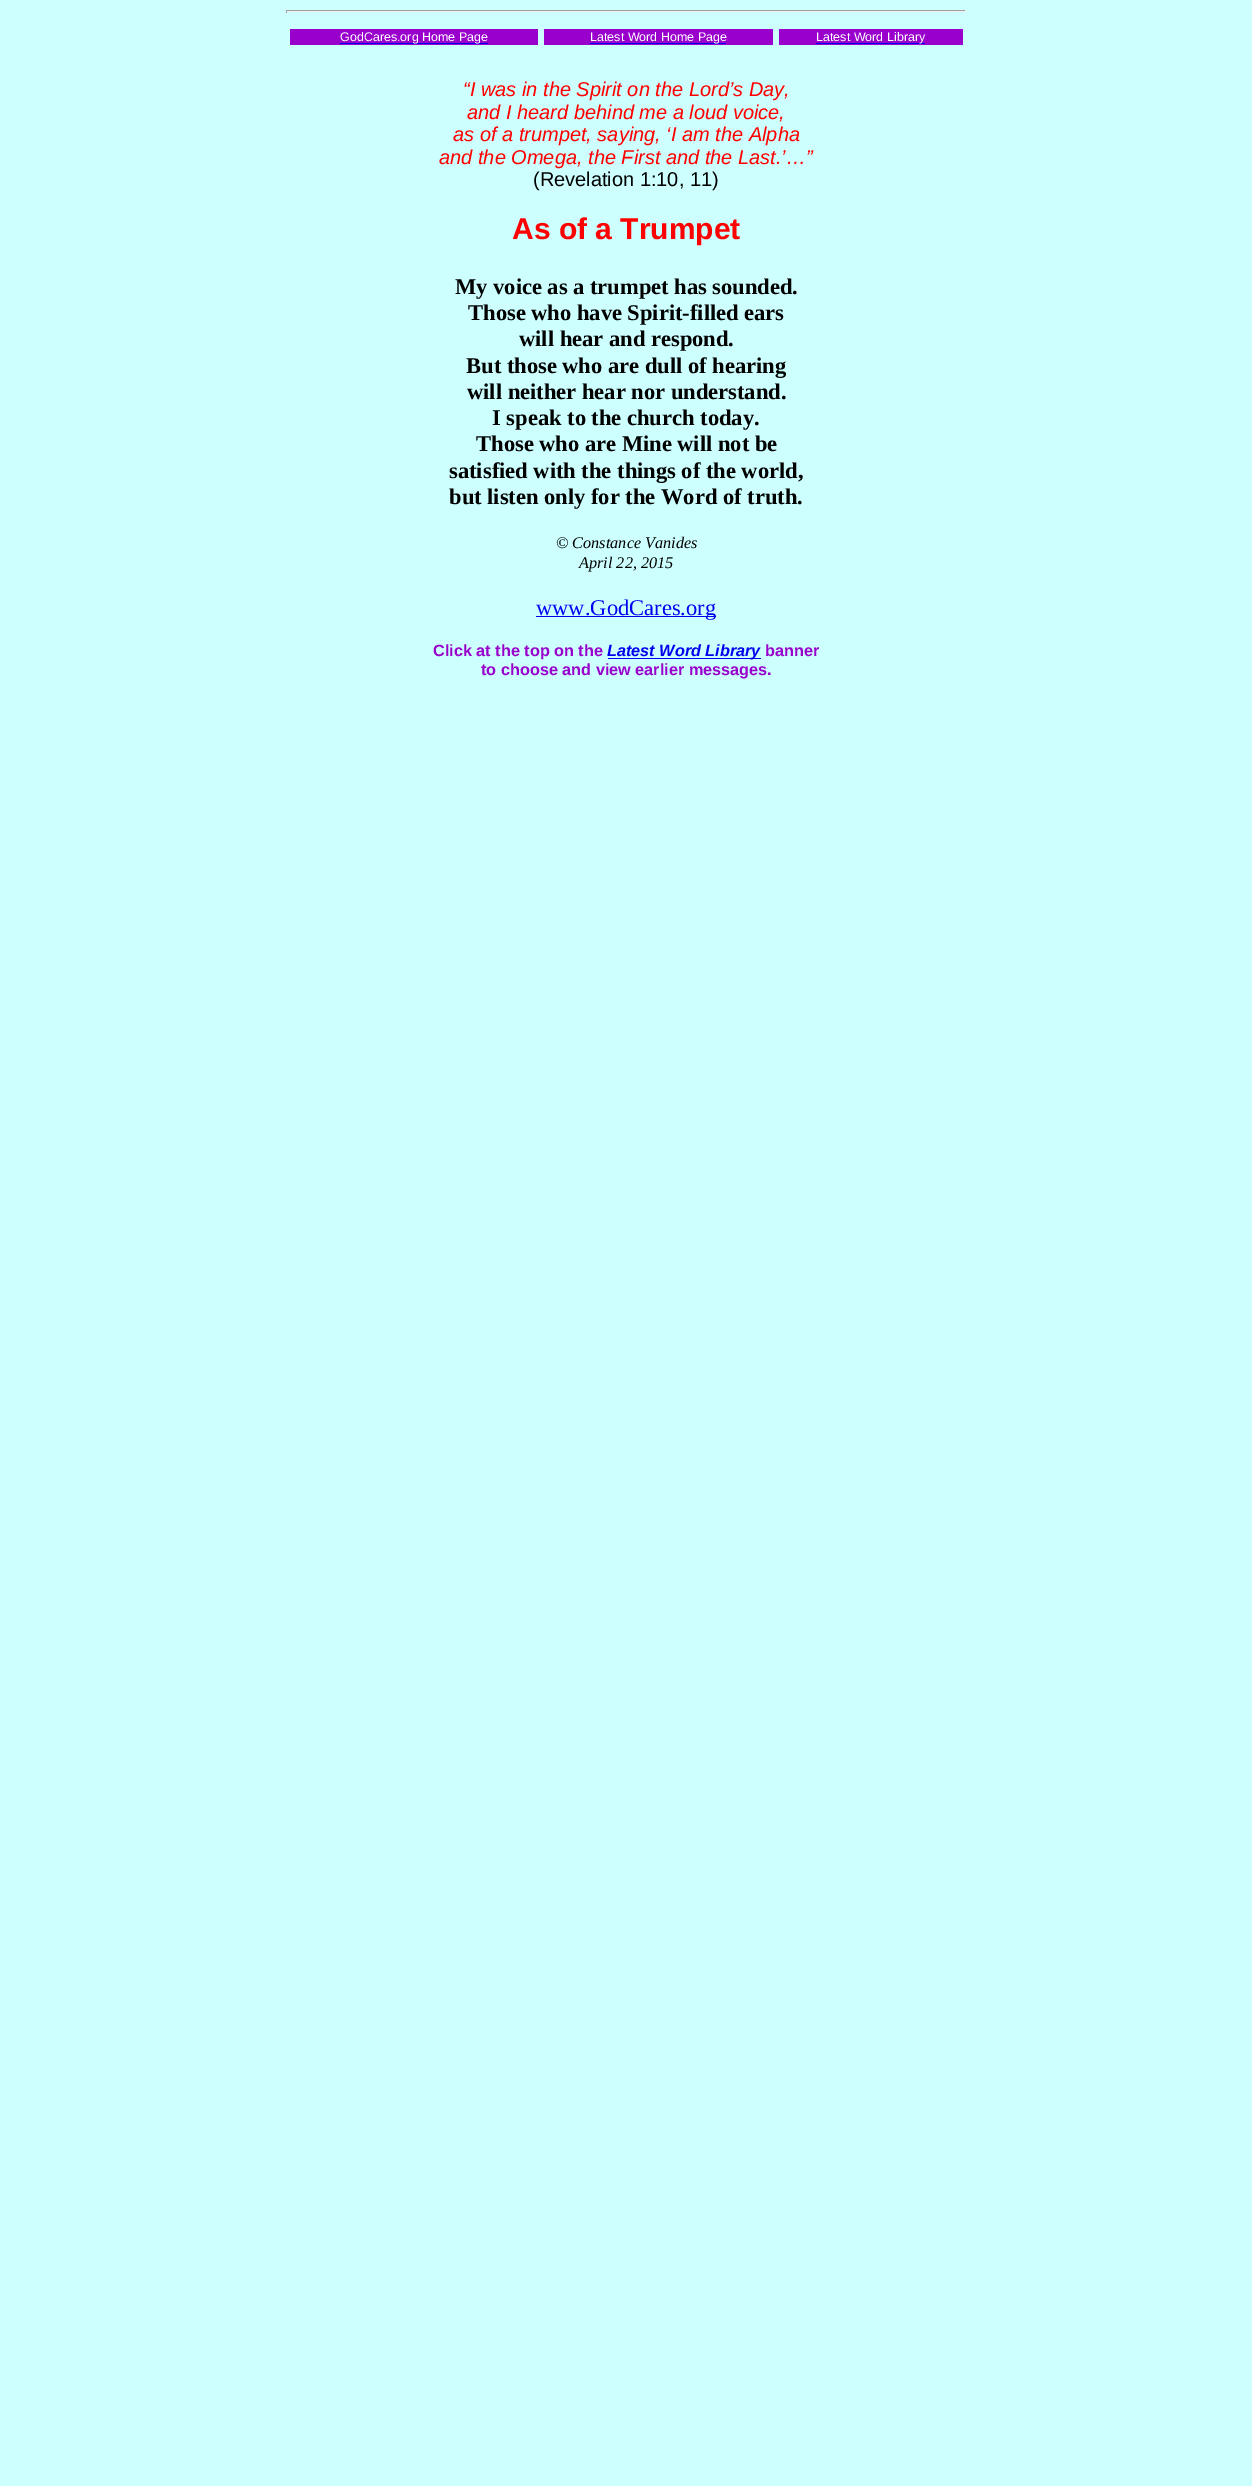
%!PS
<< /PageSize [1252 2486] >> setpagedevice
/rgb { dup -16 bitshift 255 div exch dup -8 bitshift 255 and 255 div exch 255 and 255 div setrgbcolor } def
/font { [ exch dup neg 0 0 3 -1 roll 0 0 ] selectfont } def
/text { moveto show } def
0 2486 translate 1 -1 scale
4 setmiterlimit
/s1 { /LiberationSans-Regular 12.5 font 16#FFFFFF rgb } def
/s2 { /LiberationSans-Italic 20 font 16#FF0000 rgb } def
/s3 { /LiberationSans-Regular 20 font 16#000000 rgb } def
/s4 { /LiberationSans-Bold 30 font 16#FF0000 rgb } def
/s5 { /LiberationSerif-Bold 22.5 font 16#000000 rgb } def
/s6 { /LiberationSerif-Italic 16.25 font 16#000000 rgb } def
/s7 { /LiberationSerif-Regular 22.5 font 16#0000EE rgb } def
/s8 { /LiberationSans-Bold 16.25 font 16#9900CC rgb } def
/s9 { /LiberationSans-BoldItalic 16.25 font 16#0000EE rgb } def
16#CEFFFF rgb
0 0 1252 2486 rectfill
16#9F9F9F rgb
286 10 680 1 rectfill
16#EEEEEE rgb
965 10 1 3 rectfill
286 11 680 1 rectfill
16#9F9F9F rgb
286 10 1 3 rectfill
16#9900CC rgb
290 29 248 16 rectfill
16#0000EE rgb
340 43 148 1 rectfill
s1
(GodCares.org Home Page) 340 41 text
16#9900CC rgb
544 29 229 16 rectfill
16#0000EE rgb
590 43 136 1 rectfill
s1
(Latest Word Home Page) 590 41 text
16#9900CC rgb
779 29 184 16 rectfill
16#0000EE rgb
816 43 109 1 rectfill
s1
(Latest Word Library) 816 41 text
s2
(“I was in the Spirit on the Lord’s Day,) 463 96 text
(and I heard behind me a loud voice,) 467 119 text
(as of a trumpet, saying, ‘I am the Alpha) 453 141 text
(and the Omega, the First and the Last.’…”) 439 164 text
s3
(\(Revelation 1:10, 11\)) 533 186 text
s4
(As of a Trumpet) 512 239 text
s5
(My voice as a trumpet has sounded.) 455 294 text
(Those who have Spirit-filled ears) 468 320 text
(will hear and respond.) 519 346 text
(But those who are dull of hearing) 466 373 text
(will neither hear nor understand.) 467 399 text
(I speak to the church today.) 492 425 text
(Those who are Mine will not be) 476 451 text
(satisfied with the things of the world,) 449 478 text
(but listen only for the Word of truth.) 449 504 text
s6
(© Constance Vanides) 556 548 text
(April 22, 2015) 579 568 text
16#0000EE rgb
536 616 180 1 rectfill
s7
(www.GodCares.org) 536 615 text
s8
(Click at the top on the) 433 656 text
16#0000EE rgb
608 658 153 1 rectfill
s9
(Latest Word Library) 607 656 text
s8
(banner) 765 656 text
(to choose and view earlier messages.) 481 675 text
showpage
